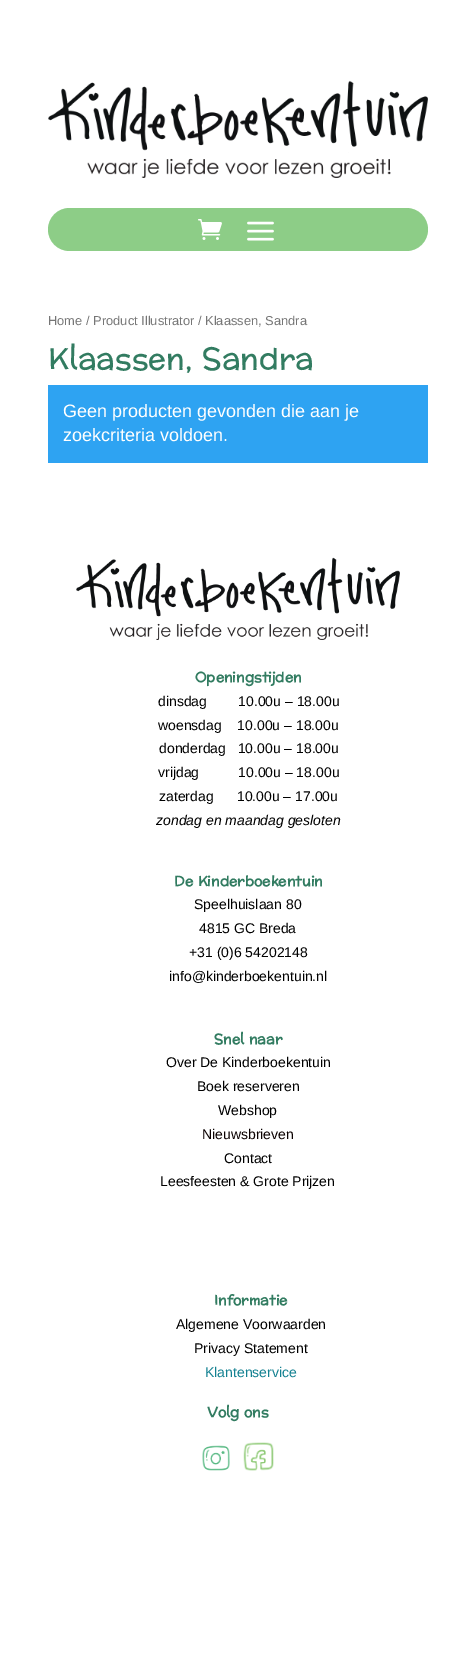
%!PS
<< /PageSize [476 1660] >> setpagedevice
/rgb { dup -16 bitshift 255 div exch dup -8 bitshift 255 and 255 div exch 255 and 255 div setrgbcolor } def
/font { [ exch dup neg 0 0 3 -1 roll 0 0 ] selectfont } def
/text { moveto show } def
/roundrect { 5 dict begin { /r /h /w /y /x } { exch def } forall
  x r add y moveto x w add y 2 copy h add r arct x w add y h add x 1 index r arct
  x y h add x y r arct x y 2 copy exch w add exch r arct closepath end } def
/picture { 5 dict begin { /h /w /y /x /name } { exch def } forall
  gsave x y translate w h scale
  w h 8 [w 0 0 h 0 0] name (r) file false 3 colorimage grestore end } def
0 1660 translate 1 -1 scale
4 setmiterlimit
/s1 { /LiberationSans-Regular 12.9 font 16#767676 rgb } def
/s2 { /Preahvihear-Regular 30 font 16#327C61 rgb } def
/s3 { /LiberationSans-Regular 18 font 16#FFFFFF rgb } def
/s4 { /Preahvihear-Bold 14 font 16#327C61 rgb } def
/s5 { /LiberationSans-Regular 14 font 16#000000 rgb } def
/s6 { /LiberationSans-Italic 14 font 16#000000 rgb } def
/s7 { /LiberationSans-Regular 14 font 16#0A0000 rgb } def
/s8 { /LiberationSans-Regular 14 font 16#138191 rgb } def
16#FFFFFF rgb
0 0 476 1660 rectfill
(pic1.raw) 48 80 380 98 picture
16#8DCD87 rgb
48 208 380 43 21.5 roundrect fill
(pic2.raw) 198 219 24 21 picture
(pic3.raw) 247 221 27 20 picture
s1
(Home / Product Illustrator / Klaassen, Sandra) 48 325 text
s2
(Klaassen, Sandra) 48 369 text
16#2EA3F2 rgb
48 385 380 78 rectfill
s3
(Geen producten gevonden die aan je) 63 417 text
(zoekcriteria voldoen.) 63 441 text
(pic4.raw) 76 557 324 83 picture
s4
(Openingstijden) 195 682 text
s5
(dinsdag        10.00u – 18.00u) 158 706 text
(woensdag    10.00u – 18.00u) 158 730 text
(donderdag   10.00u – 18.00u) 159 753 text
(vrijdag          10.00u – 18.00u) 158 777 text
(zaterdag      10.00u – 17.00u) 159 801 text
s6
(zondag en maandag gesloten) 156 825 text
s4
(De Kinderboekentuin) 174 886 text
s5
(Speelhuislaan 80) 194 909 text
(4815 GC Breda) 199 933 text
(+31 \(0\)6 54202148) 189 957 text
(info@kinderboekentuin.nl) 169 981 text
s4
(Snel naar) 214 1044 text
s5
(Over De Kinderboekentuin) 166 1067 text
(Boek reserveren) 197 1091 text
(Webshop) 218 1115 text
s7
(Nieuwsbrieven) 202 1139 text
s5
(Contact) 224 1163 text
(Leesfeesten & Grote Prijzen) 160 1186 text
s4
(Informatie) 214 1305 text
s5
(Algemene Voorwaarden) 176 1329 text
(Privacy Statement) 194 1353 text
s8
(Klantenservice) 205 1377 text
s4
(Volg ons) 207 1417 text
(pic5.raw) 202 1445 28 26 picture
(pic6.raw) 243 1442 31 29 picture
showpage
